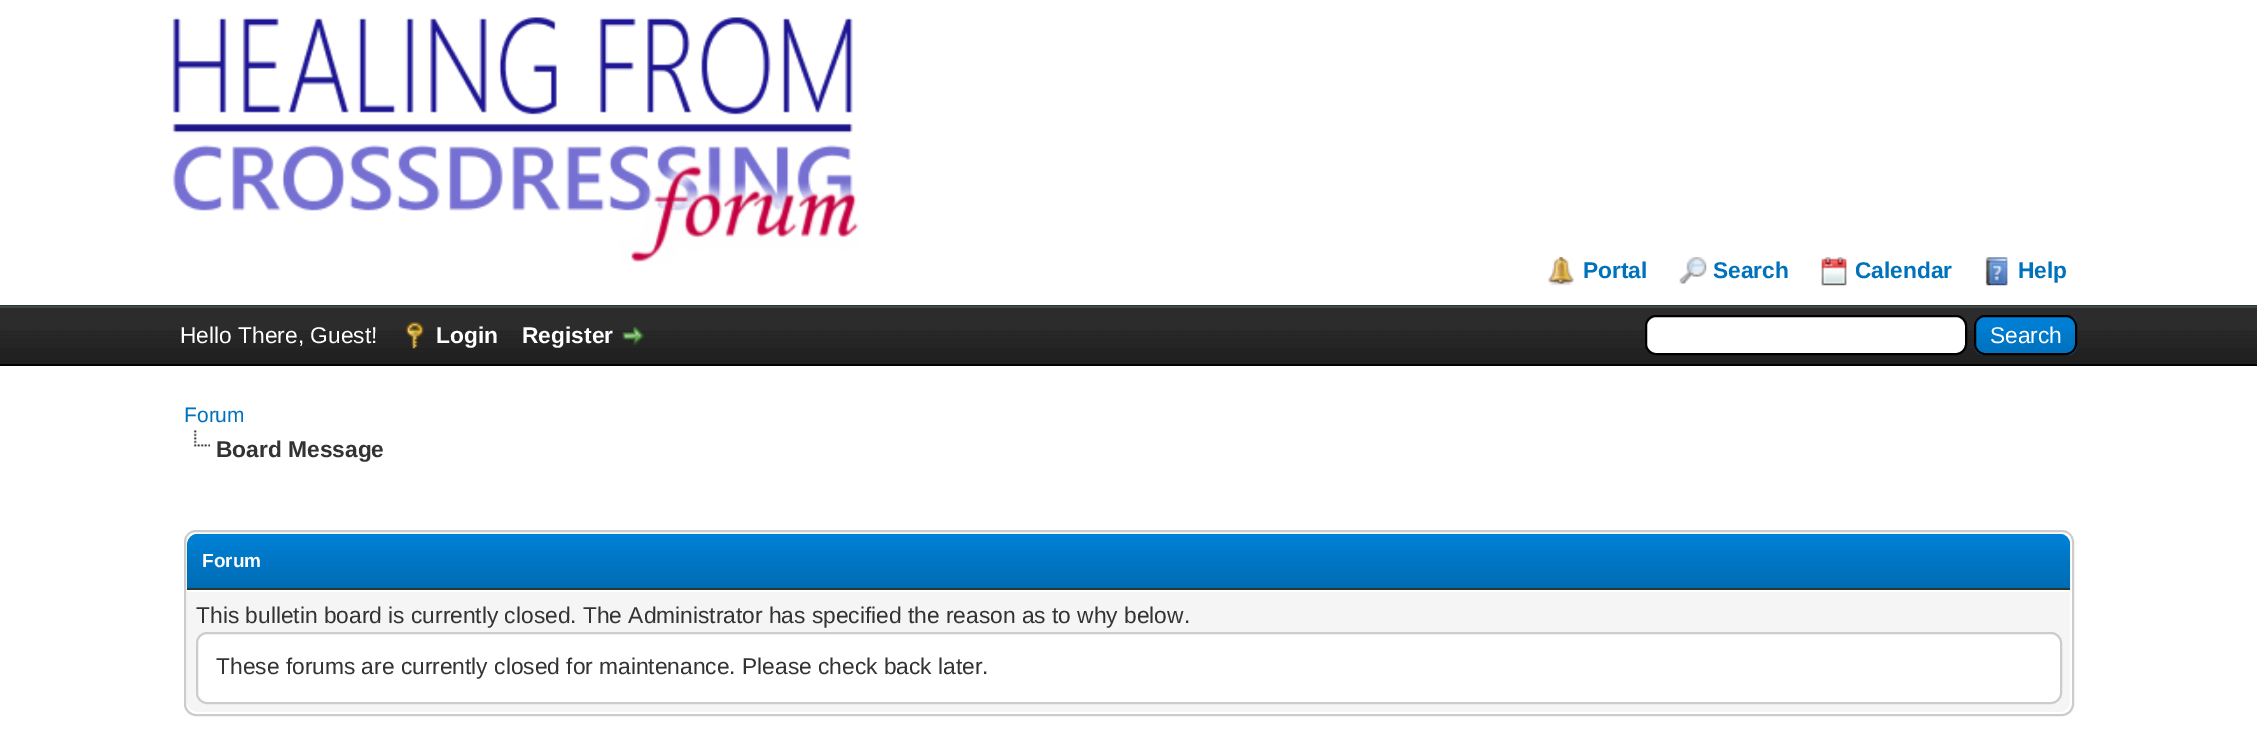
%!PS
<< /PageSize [2257 731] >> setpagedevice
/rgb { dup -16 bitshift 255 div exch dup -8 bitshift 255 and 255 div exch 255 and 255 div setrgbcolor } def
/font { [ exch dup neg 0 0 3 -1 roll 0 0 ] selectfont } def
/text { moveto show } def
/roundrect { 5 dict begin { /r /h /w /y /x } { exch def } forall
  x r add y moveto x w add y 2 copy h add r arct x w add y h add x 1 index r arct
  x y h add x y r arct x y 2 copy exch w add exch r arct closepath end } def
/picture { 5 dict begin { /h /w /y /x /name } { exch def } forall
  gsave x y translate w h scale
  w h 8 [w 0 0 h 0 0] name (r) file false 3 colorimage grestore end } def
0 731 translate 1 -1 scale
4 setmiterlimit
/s1 { /LiberationSans-Bold 22.75 font 16#0072BC rgb } def
/s2 { /LiberationSans-Regular 22.75 font 16#FFFFFF rgb } def
/s3 { /LiberationSans-Bold 22.75 font 16#FFFFFF rgb } def
/s4 { /LiberationSans-Regular 21 font 16#0072BC rgb } def
/s5 { /LiberationSans-Bold 22.75 font 16#333333 rgb } def
/s6 { /LiberationSans-Bold 19 font 16#FFFFFF rgb } def
/s7 { /LiberationSans-Regular 22.75 font 16#333333 rgb } def
16#FFFFFF rgb
0 0 2257 731 rectfill
16#263C30 rgb
0 305 2257 1 rectfill
(pic1.raw) 172 17 687 246 picture
(pic2.raw) 1548 257 26 29 picture
s1
(Portal) 1583 278 text
(pic3.raw) 1679 257 28 27 picture
(Search) 1713 278 text
(pic4.raw) 1821 257 26 29 picture
(Calendar) 1855 278 text
(pic5.raw) 1985 257 23 29 picture
(Help) 2018 278 text
(pic6.raw) 0 308 2257 56 picture
16#444444 rgb
0 306 2257 2 rectfill
16#000000 rgb
0 364 2257 2 rectfill
s2
(Hello There, Guest!) 180 343 text
(pic7.raw) 405 322 19 27 picture
s3
(Login) 436 343 text
(Register) 522 343 text
(pic8.raw) 622 326 23 20 picture
1646 316 320 38 10 roundrect gsave fill grestore
16#000000 rgb
2 setlinewidth
stroke
(pic9.raw) 1974 316 104 40 picture
1975 316 101 38 10 roundrect stroke
s2
(Search) 1990 343 text
s4
(Forum) 184 422 text
(pic10.raw) 193 430 17 17 picture
s5
(Board Message) 216 457 text
16#CCCCCC rgb
185 531 1888 184 11 roundrect stroke
16#0066A2 rgb
198 534 moveto 2059 534 lineto 2065 534 2070 539 2070 545 curveto 2070 590 lineto 187 590 lineto 187 545 lineto 187 539 192 534 198 534 curveto closepath fill
(pic11.raw) 187 533 1884 57 picture
16#263C30 rgb
187 588 1883 2 rectfill
s6
(Forum) 202 567 text
16#F5F5F5 rgb
187 590 moveto 2070 590 lineto 2070 701 lineto 2070 707 2065 712 2059 712 curveto 198 712 lineto 192 712 187 707 187 701 curveto closepath fill
16#FFFFFF rgb
187 590 1883 2 rectfill
s7
(This bulletin board is currently closed. The Administrator has specified the reason as to why below.) 196 623 text
16#FFFFFF rgb
197 633 1864 70 10 roundrect gsave fill grestore
16#CCCCCC rgb
stroke
s7
(These forums are currently closed for maintenance. Please check back later.) 216 674 text
showpage
